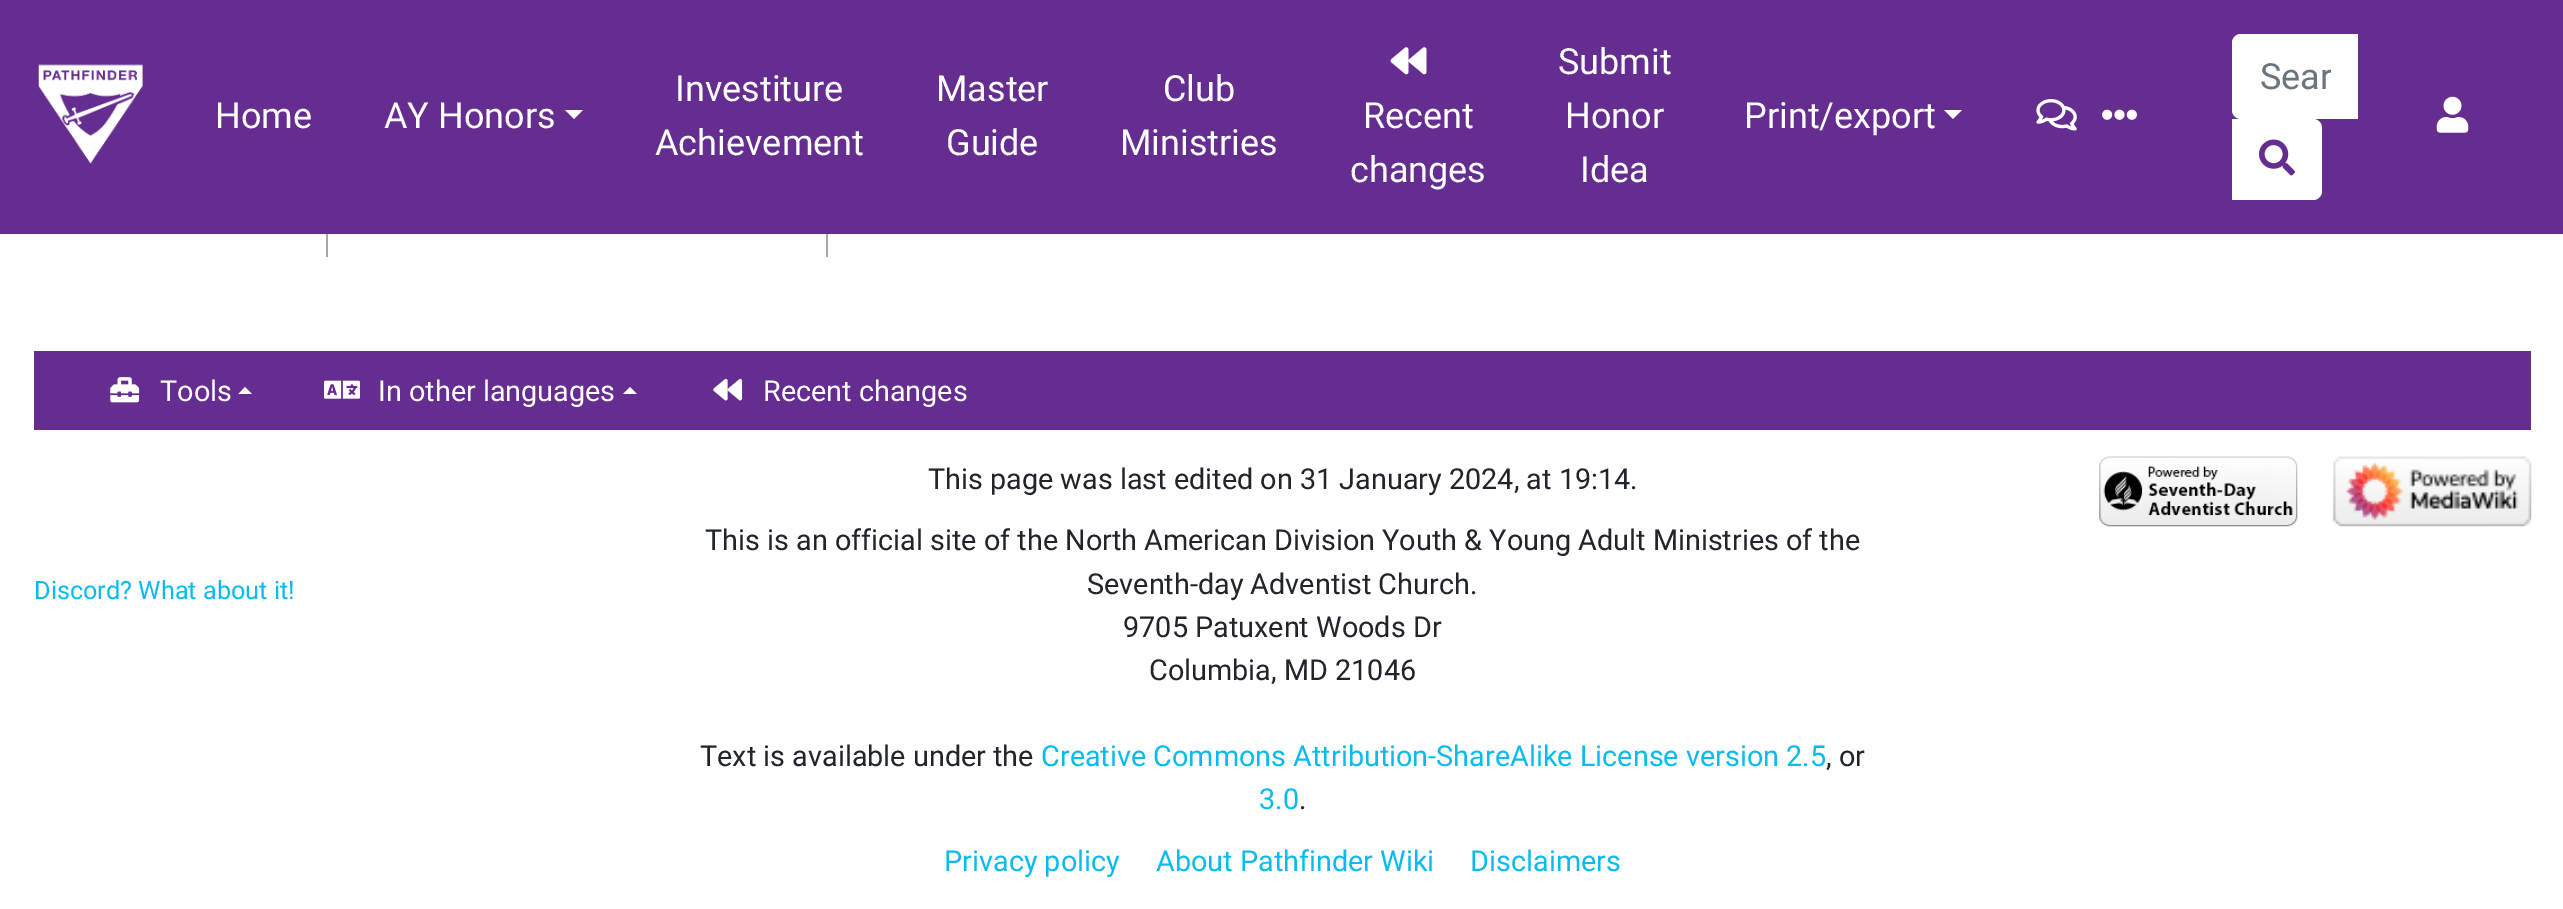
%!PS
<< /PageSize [2563 909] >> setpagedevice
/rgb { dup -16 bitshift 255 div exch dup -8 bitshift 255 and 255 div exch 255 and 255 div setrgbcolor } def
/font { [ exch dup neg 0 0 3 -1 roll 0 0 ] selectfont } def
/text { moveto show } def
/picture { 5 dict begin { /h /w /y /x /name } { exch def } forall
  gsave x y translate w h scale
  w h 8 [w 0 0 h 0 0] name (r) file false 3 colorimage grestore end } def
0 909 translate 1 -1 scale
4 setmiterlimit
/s1 { /Roboto-Regular 36 font 16#FFFFFF rgb } def
/s2 { /Roboto-Regular 36 font 16#6C757D rgb } def
/s3 { /Roboto-Regular 28.8 font 16#FFFFFF rgb } def
/s4 { /Roboto-Regular 25.25 font 16#08BBEE rgb } def
/s5 { /Roboto-Regular 28.8 font 16#212529 rgb } def
/s6 { /Roboto-Regular 28.8 font 16#08BBEE rgb } def
16#FFFFFF rgb
0 0 2563 909 rectfill
16#662D91 rgb
0 0 2563 234 rectfill
(pic1.raw) 38 64 105 100 picture
s1
(Home) 215 128 text
(AY Honors) 384 128 text
565 110 moveto 583 110 lineto 574 119 lineto closepath fill
(Investiture) 675 101 text
(Achievement) 655 155 text
(Master) 936 101 text
(Guide) 946 155 text
(Club) 1163 101 text
(Ministries) 1120 155 text
(pic2.raw) 1390 47 37 28 picture
(Recent) 1363 128 text
(changes) 1350 182 text
(Submit) 1558 74 text
(Honor) 1565 128 text
(Idea) 1580 182 text
(Print/export) 1744 128 text
1944 110 moveto 1962 110 lineto 1953 119 lineto closepath fill
2241 34 moveto 2358 34 lineto 2358 119 lineto 2241 119 lineto 2236 119 2232 115 2232 110 curveto 2232 43 lineto 2232 38 2236 34 2241 34 curveto closepath fill
gsave
2259 56 72 43 rectclip
s2
(Sear) 2260 89 text
grestore
2230 119 moveto 2313 119 lineto 2318 119 2322 123 2322 128 curveto 2322 191 lineto 2322 196 2318 200 2313 200 curveto 2230 200 lineto closepath fill
16#662D91 rgb
2230 119 2 81 rectfill
(pic3.raw) 2259 139 36 37 picture
(pic4.raw) 2036 99 41 32 picture
(pic5.raw) 2102 109 35 11 picture
(pic6.raw) 2436 96 33 37 picture
16#A2A9B1 rgb
326 234 2 23 rectfill
826 234 2 23 rectfill
16#662D91 rgb
34 351 2497 79 rectfill
(pic7.raw) 110 377 30 26 picture
s3
(Tools) 160 401 text
252 394 moveto 238.5 394 lineto 245 387 lineto closepath fill
(pic8.raw) 324 380 36 19 picture
(In other languages) 378 401 text
637 394 moveto 623 394 lineto 630 387 lineto closepath fill
(pic9.raw) 713 378 30 23 picture
(Recent changes) 763 401 text
s4
(Discord? What about it!) 34 599 text
s5
(This page was last edited on 31 January 2024, at 19:14.) 928 489 text
(This is an official site of the North American Division Youth & Young Adult Ministries of the) 705 550 text
(Seventh-day Adventist Church.) 1087 594 text
(9705 Patuxent Woods Dr) 1123 637 text
(Columbia, MD 21046) 1149 680 text
(Text is available under the) 700 766 text
s6
(Creative Commons Attribution-ShareAlike License version 2.5) 1041 766 text
s5
(, or) 1826 766 text
s6
(3.0) 1259 809 text
s5
(.) 1299 809 text
s6
(Privacy policy) 944 871 text
(About Pathfinder Wiki) 1156 871 text
(Disclaimers) 1470 871 text
(pic10.raw) 2099 456 199 71 picture
(pic11.raw) 2333 456 199 71 picture
showpage
